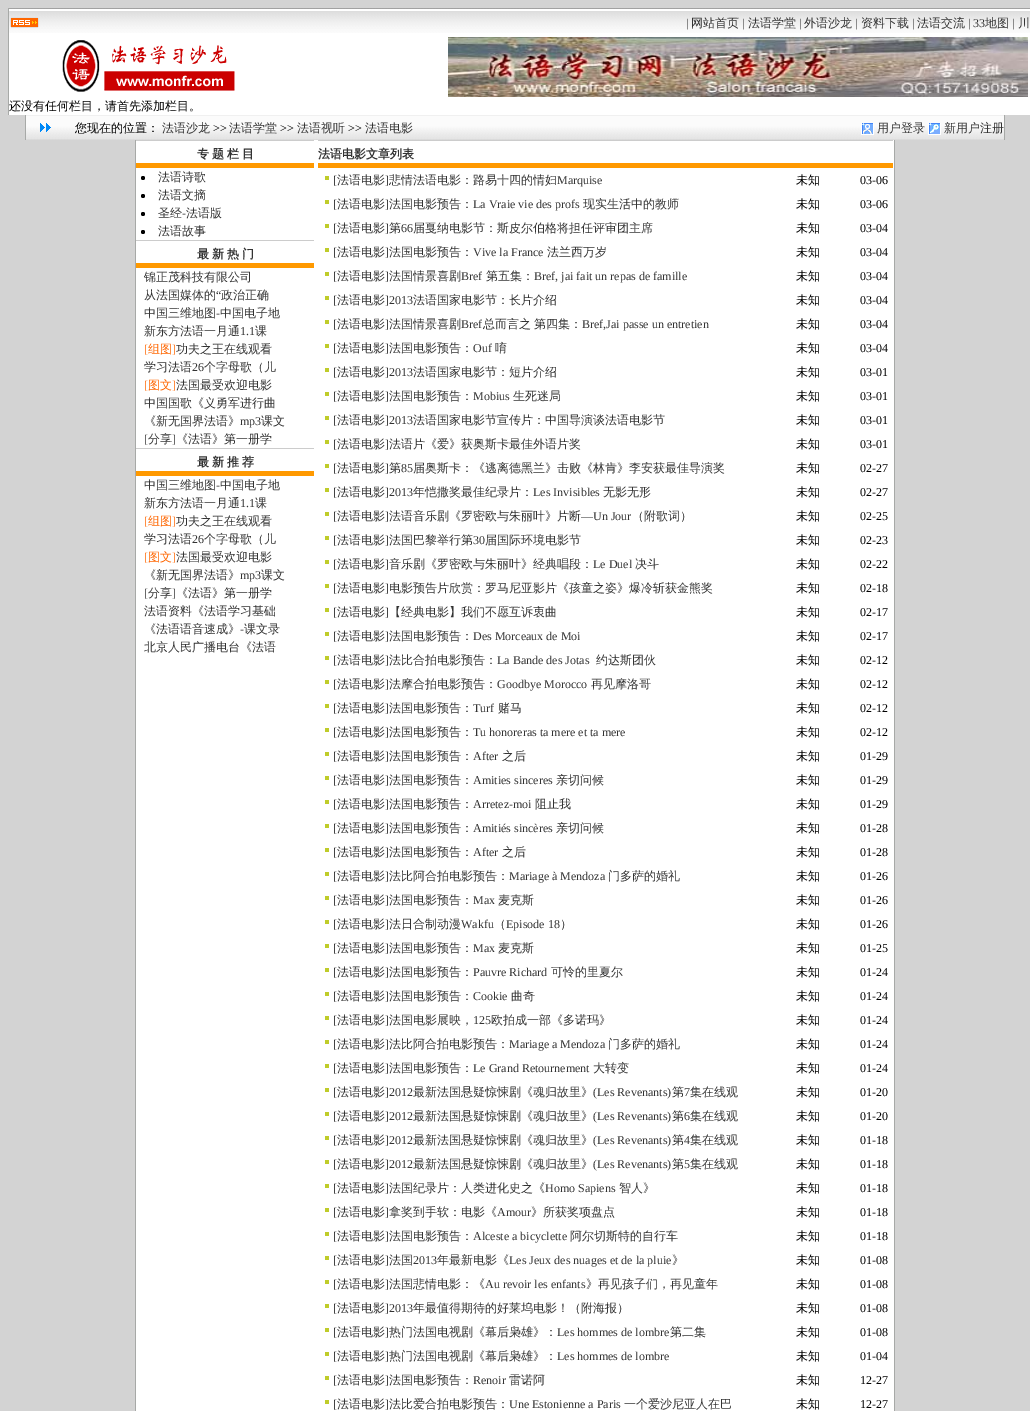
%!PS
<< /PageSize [1030 1411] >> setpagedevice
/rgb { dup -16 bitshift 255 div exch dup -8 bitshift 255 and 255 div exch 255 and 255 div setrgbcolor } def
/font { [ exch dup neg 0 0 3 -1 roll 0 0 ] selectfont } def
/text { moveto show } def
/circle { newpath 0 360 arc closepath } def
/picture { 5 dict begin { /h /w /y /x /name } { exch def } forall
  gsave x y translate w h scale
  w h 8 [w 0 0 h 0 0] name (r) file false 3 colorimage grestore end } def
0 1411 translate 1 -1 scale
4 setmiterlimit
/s1 { /LiberationSerif-Regular 12 font 16#333333 rgb } def
/s2 { /WenQuanYiZenHei-Medium 12 font 16#333333 rgb } def
/s3 { /WenQuanYiZenHei-Medium 12 font 16#000000 rgb } def
/s4 { /LiberationSerif-Regular 12 font 16#000000 rgb } def
/s5 { /LiberationSerif-Regular 12 font 16#FF6600 rgb } def
/s6 { /WenQuanYiZenHei-Medium 12 font 16#FF6600 rgb } def
/s7 { /WenQuanYiZenHei-Bold 12 font 16#333333 rgb } def
16#D3D3D3 rgb
0 0 1030 1411 rectfill
16#FFFFFF rgb
9 33 1021 82 rectfill
16#A7A9A7 rgb
8 8 1 107 rectfill
(pic1.raw) 9 8 1021 25 picture
(pic2.raw) 10 17 29 11 picture
s1
(|) 686 27 text
s2
(网站首页) 691 27 text
s1
(|) 742 27 text
s2
(法语学堂) 748 27 text
s1
(|) 799 27 text
s2
(外语沙龙) 804 27 text
s1
(|) 855 27 text
s2
(资料下载) 861 27 text
s1
(|) 912 27 text
s2
(法语交流) 917 27 text
s1
(| 33) 968 27 text
s2
(地图) 985 27 text
s1
(|) 1012 27 text
s2
(川) 1018 27 text
(pic3.raw) 62 40 173 52 picture
(pic4.raw) 448 37 580 60 picture
s3
(还没有任何栏目，请首先添加栏目。) 9 110 text
(pic5.raw) 26 115 978 25 picture
16#A7A9A7 rgb
1004 115 1 25 rectfill
25 115 1 25 rectfill
(pic6.raw) 40 123 11 9 picture
s3
(您现在的位置：) 75 132 text
s2
(法语沙龙) 162 132 text
s4
(>>) 213 132 text
s2
(法语学堂) 229 132 text
s4
(>>) 280 132 text
s2
(法语视听) 297 132 text
s4
(>>) 348 132 text
s2
(法语电影) 365 132 text
(pic7.raw) 861 123 13 12 picture
(用户登录) 877 132 text
(pic8.raw) 928 123 13 12 picture
(新用户注册) 944 132 text
16#FFFFFF rgb
136 140 758 1271 rectfill
16#A7A9A7 rgb
894 140 1 1271 rectfill
135 140 1 1271 rectfill
(pic9.raw) 136 140 178 28 picture
/WenQuanYiZenHei-Bold 12 font
16#333333 rgb
197 158 moveto -0.5 0 32 (专 题 栏 目) widthshow
16#000000 rgb
143 178 2 circle fill
s2
(法语诗歌) 158 181 text
16#000000 rgb
143 196 2 circle fill
s2
(法语文摘) 158 199 text
16#000000 rgb
143 214 2 circle fill
s2
(圣经) 158 217 text
s1
(-) 182 217 text
s2
(法语版) 186 217 text
16#000000 rgb
143 232 2 circle fill
s2
(法语故事) 158 235 text
(pic9.raw) 136 240 178 28 picture
/WenQuanYiZenHei-Bold 12 font
197 258 moveto -0.5 0 32 (最 新 热 门) widthshow
s2
(锦正茂科技有限公司) 144 281 text
(从法国媒体的) 144 299 text
s1
(“) 216 299 text
s2
(政治正确) 221 299 text
(中国三维地图) 144 317 text
s1
(-) 216 317 text
s2
(中国电子地) 220 317 text
(新东方法语一月通) 144 335 text
s1
(1.1) 240 335 text
s2
(课) 255 335 text
s5
([) 144 353 text
s6
(组图) 148 353 text
s5
(]) 172 353 text
s2
(功夫之王在线观看) 176 353 text
(学习法语) 144 371 text
s1
(26) 192 371 text
s2
(个字母歌（儿) 204 371 text
s5
([) 144 389 text
s6
(图文) 148 389 text
s5
(]) 172 389 text
s2
(法国最受欢迎电影) 176 389 text
(中国国歌《义勇军进行曲) 144 407 text
(《新无国界法语》) 144 425 text
s1
(mp3) 240 425 text
s2
(课文) 261 425 text
s1
([) 144 443 text
s2
(分享) 148 443 text
s1
(]) 172 443 text
s2
(《法语》第一册学) 176 443 text
(pic9.raw) 136 448 178 28 picture
/WenQuanYiZenHei-Bold 12 font
197 466 moveto -0.5 0 32 (最 新 推 荐) widthshow
s2
(中国三维地图) 144 489 text
s1
(-) 216 489 text
s2
(中国电子地) 220 489 text
(新东方法语一月通) 144 507 text
s1
(1.1) 240 507 text
s2
(课) 255 507 text
s5
([) 144 525 text
s6
(组图) 148 525 text
s5
(]) 172 525 text
s2
(功夫之王在线观看) 176 525 text
(学习法语) 144 543 text
s1
(26) 192 543 text
s2
(个字母歌（儿) 204 543 text
s5
([) 144 561 text
s6
(图文) 148 561 text
s5
(]) 172 561 text
s2
(法国最受欢迎电影) 176 561 text
(《新无国界法语》) 144 579 text
s1
(mp3) 240 579 text
s2
(课文) 261 579 text
s1
([) 144 597 text
s2
(分享) 148 597 text
s1
(]) 172 597 text
s2
(《法语》第一册学) 176 597 text
(法语资料《法语学习基础) 144 615 text
(《法语语音速成》) 144 633 text
s1
(-) 240 633 text
s2
(课文录) 244 633 text
(北京人民广播电台《法语) 144 651 text
(pic10.raw) 318 140 575 28 picture
s7
(法语电影文章列表) 318 158 text
16#BFCC2A rgb
325 176 4 4 rectfill
s4
([) 333 184 text
s2
(法语电影) 337 184 text
s4
(]) 385 184 text
s2
(悲情法语电影：路易十四的情妇) 389 184 text
s1
(Marquise) 557 184 text
s3
(未知) 796 184 text
s4
(03-06) 860 184 text
16#BFCC2A rgb
325 200 4 4 rectfill
s4
([) 333 208 text
s2
(法语电影) 337 208 text
s4
(]) 385 208 text
s2
(法国电影预告：) 389 208 text
s1
(La Vraie vie des profs) 473 208 text
s2
(现实生活中的教师) 583 208 text
s3
(未知) 796 208 text
s4
(03-06) 860 208 text
16#BFCC2A rgb
325 224 4 4 rectfill
s4
([) 333 232 text
s2
(法语电影) 337 232 text
s4
(]) 385 232 text
s2
(第) 389 232 text
s1
(66) 401 232 text
s2
(届戛纳电影节：斯皮尔伯格将担任评审团主席) 413 232 text
s3
(未知) 796 232 text
s4
(03-04) 860 232 text
16#BFCC2A rgb
325 248 4 4 rectfill
s4
([) 333 256 text
s2
(法语电影) 337 256 text
s4
(]) 385 256 text
s2
(法国电影预告：) 389 256 text
s1
(Vive la France) 473 256 text
s2
(法兰西万岁) 547 256 text
s3
(未知) 796 256 text
s4
(03-04) 860 256 text
16#BFCC2A rgb
325 272 4 4 rectfill
s4
([) 333 280 text
s2
(法语电影) 337 280 text
s4
(]) 385 280 text
s2
(法国情景喜剧) 389 280 text
s1
(Bref) 461 280 text
s2
(第五集：) 486 280 text
s1
(Bref, jai fait un repas de famille) 534 280 text
s3
(未知) 796 280 text
s4
(03-04) 860 280 text
16#BFCC2A rgb
325 296 4 4 rectfill
s4
([) 333 304 text
s2
(法语电影) 337 304 text
s4
(]) 385 304 text
s1
(2013) 389 304 text
s2
(法语国家电影节：长片介绍) 413 304 text
s3
(未知) 796 304 text
s4
(03-04) 860 304 text
16#BFCC2A rgb
325 320 4 4 rectfill
s4
([) 333 328 text
s2
(法语电影) 337 328 text
s4
(]) 385 328 text
s2
(法国情景喜剧) 389 328 text
s1
(Bref) 461 328 text
s2
(总而言之) 483 328 text
(第四集：) 534 328 text
s1
(Bref,Jai passe un entretien) 582 328 text
s3
(未知) 796 328 text
s4
(03-04) 860 328 text
16#BFCC2A rgb
325 344 4 4 rectfill
s4
([) 333 352 text
s2
(法语电影) 337 352 text
s4
(]) 385 352 text
s2
(法国电影预告：) 389 352 text
s1
(Ouf) 473 352 text
s2
(唷) 495 352 text
s3
(未知) 796 352 text
s4
(03-04) 860 352 text
16#BFCC2A rgb
325 368 4 4 rectfill
s4
([) 333 376 text
s2
(法语电影) 337 376 text
s4
(]) 385 376 text
s1
(2013) 389 376 text
s2
(法语国家电影节：短片介绍) 413 376 text
s3
(未知) 796 376 text
s4
(03-01) 860 376 text
16#BFCC2A rgb
325 392 4 4 rectfill
s4
([) 333 400 text
s2
(法语电影) 337 400 text
s4
(]) 385 400 text
s2
(法国电影预告：) 389 400 text
s1
(Mobius) 473 400 text
s2
(生死迷局) 513 400 text
s3
(未知) 796 400 text
s4
(03-01) 860 400 text
16#BFCC2A rgb
325 416 4 4 rectfill
s4
([) 333 424 text
s2
(法语电影) 337 424 text
s4
(]) 385 424 text
s1
(2013) 389 424 text
s2
(法语国家电影节宣传片：中国导演谈法语电影节) 413 424 text
s3
(未知) 796 424 text
s4
(03-01) 860 424 text
16#BFCC2A rgb
325 440 4 4 rectfill
s4
([) 333 448 text
s2
(法语电影) 337 448 text
s4
(]) 385 448 text
s2
(法语片《爱》获奥斯卡最佳外语片奖) 389 448 text
s3
(未知) 796 448 text
s4
(03-01) 860 448 text
16#BFCC2A rgb
325 464 4 4 rectfill
s4
([) 333 472 text
s2
(法语电影) 337 472 text
s4
(]) 385 472 text
s2
(第) 389 472 text
s1
(85) 401 472 text
s2
(届奥斯卡：《逃离德黑兰》击败《林肯》李安获最佳导演奖) 413 472 text
s3
(未知) 796 472 text
s4
(02-27) 860 472 text
16#BFCC2A rgb
325 488 4 4 rectfill
s4
([) 333 496 text
s2
(法语电影) 337 496 text
s4
(]) 385 496 text
s1
(2013) 389 496 text
s2
(年恺撒奖最佳纪录片：) 413 496 text
s1
(Les Invisibles) 533 496 text
s2
(无影无形) 603 496 text
s3
(未知) 796 496 text
s4
(02-27) 860 496 text
16#BFCC2A rgb
325 512 4 4 rectfill
s4
([) 333 520 text
s2
(法语电影) 337 520 text
s4
(]) 385 520 text
s2
(法语音乐剧《罗密欧与朱丽叶》片断) 389 520 text
s1
(—Un Jour) 581 520 text
s2
(（附歌词）) 632 520 text
s3
(未知) 796 520 text
s4
(02-25) 860 520 text
16#BFCC2A rgb
325 536 4 4 rectfill
s4
([) 333 544 text
s2
(法语电影) 337 544 text
s4
(]) 385 544 text
s2
(法国巴黎举行第) 389 544 text
s1
(30) 473 544 text
s2
(届国际环境电影节) 485 544 text
s3
(未知) 796 544 text
s4
(02-23) 860 544 text
16#BFCC2A rgb
325 560 4 4 rectfill
s4
([) 333 568 text
s2
(法语电影) 337 568 text
s4
(]) 385 568 text
s2
(音乐剧《罗密欧与朱丽叶》经典唱段：) 389 568 text
s1
(Le Duel) 593 568 text
s2
(决斗) 635 568 text
s3
(未知) 796 568 text
s4
(02-22) 860 568 text
16#BFCC2A rgb
325 584 4 4 rectfill
s4
([) 333 592 text
s2
(法语电影) 337 592 text
s4
(]) 385 592 text
s2
(电影预告片欣赏：罗马尼亚影片《孩童之姿》爆冷斩获金熊奖) 389 592 text
s3
(未知) 796 592 text
s4
(02-18) 860 592 text
16#BFCC2A rgb
325 608 4 4 rectfill
s4
([) 333 616 text
s2
(法语电影) 337 616 text
s4
(]) 385 616 text
s2
(【经典电影】我们不愿互诉衷曲) 389 616 text
s3
(未知) 796 616 text
s4
(02-17) 860 616 text
16#BFCC2A rgb
325 632 4 4 rectfill
s4
([) 333 640 text
s2
(法语电影) 337 640 text
s4
(]) 385 640 text
s2
(法国电影预告：) 389 640 text
s1
(Des Morceaux de Moi) 473 640 text
s3
(未知) 796 640 text
s4
(02-17) 860 640 text
16#BFCC2A rgb
325 656 4 4 rectfill
s4
([) 333 664 text
s2
(法语电影) 337 664 text
s4
(]) 385 664 text
s2
(法比合拍电影预告：) 389 664 text
s1
(La Bande des Jotas) 497 664 text
s2
(约达斯团伙) 596 664 text
s3
(未知) 796 664 text
s4
(02-12) 860 664 text
16#BFCC2A rgb
325 680 4 4 rectfill
s4
([) 333 688 text
s2
(法语电影) 337 688 text
s4
(]) 385 688 text
s2
(法摩合拍电影预告：) 389 688 text
s1
(Goodbye Morocco) 497 688 text
s2
(再见摩洛哥) 591 688 text
s3
(未知) 796 688 text
s4
(02-12) 860 688 text
16#BFCC2A rgb
325 704 4 4 rectfill
s4
([) 333 712 text
s2
(法语电影) 337 712 text
s4
(]) 385 712 text
s2
(法国电影预告：) 389 712 text
s1
(Turf) 473 712 text
s2
(赌马) 498 712 text
s3
(未知) 796 712 text
s4
(02-12) 860 712 text
16#BFCC2A rgb
325 728 4 4 rectfill
s4
([) 333 736 text
s2
(法语电影) 337 736 text
s4
(]) 385 736 text
s2
(法国电影预告：) 389 736 text
s1
(Tu honoreras ta mere et ta mere) 473 736 text
s3
(未知) 796 736 text
s4
(02-12) 860 736 text
16#BFCC2A rgb
325 752 4 4 rectfill
s4
([) 333 760 text
s2
(法语电影) 337 760 text
s4
(]) 385 760 text
s2
(法国电影预告：) 389 760 text
s1
(After) 473 760 text
s2
(之后) 502 760 text
s3
(未知) 796 760 text
s4
(01-29) 860 760 text
16#BFCC2A rgb
325 776 4 4 rectfill
s4
([) 333 784 text
s2
(法语电影) 337 784 text
s4
(]) 385 784 text
s2
(法国电影预告：) 389 784 text
s1
(Amities sinceres) 473 784 text
s2
(亲切问候) 556 784 text
s3
(未知) 796 784 text
s4
(01-29) 860 784 text
16#BFCC2A rgb
325 800 4 4 rectfill
s4
([) 333 808 text
s2
(法语电影) 337 808 text
s4
(]) 385 808 text
s2
(法国电影预告：) 389 808 text
s1
(Arretez-moi) 473 808 text
s2
(阻止我) 535 808 text
s3
(未知) 796 808 text
s4
(01-29) 860 808 text
16#BFCC2A rgb
325 824 4 4 rectfill
s4
([) 333 832 text
s2
(法语电影) 337 832 text
s4
(]) 385 832 text
s2
(法国电影预告：) 389 832 text
s1
(Amitiés sincères) 473 832 text
s2
(亲切问候) 556 832 text
s3
(未知) 796 832 text
s4
(01-28) 860 832 text
16#BFCC2A rgb
325 848 4 4 rectfill
s4
([) 333 856 text
s2
(法语电影) 337 856 text
s4
(]) 385 856 text
s2
(法国电影预告：) 389 856 text
s1
(After) 473 856 text
s2
(之后) 502 856 text
s3
(未知) 796 856 text
s4
(01-28) 860 856 text
16#BFCC2A rgb
325 872 4 4 rectfill
s4
([) 333 880 text
s2
(法语电影) 337 880 text
s4
(]) 385 880 text
s2
(法比阿合拍电影预告：) 389 880 text
s1
(Mariage à Mendoza) 509 880 text
s2
(门多萨的婚礼) 608 880 text
s3
(未知) 796 880 text
s4
(01-26) 860 880 text
16#BFCC2A rgb
325 896 4 4 rectfill
s4
([) 333 904 text
s2
(法语电影) 337 904 text
s4
(]) 385 904 text
s2
(法国电影预告：) 389 904 text
s1
(Max) 473 904 text
s2
(麦克斯) 498 904 text
s3
(未知) 796 904 text
s4
(01-26) 860 904 text
16#BFCC2A rgb
325 920 4 4 rectfill
s4
([) 333 928 text
s2
(法语电影) 337 928 text
s4
(]) 385 928 text
s2
(法日合制动漫) 389 928 text
s1
(Wakfu) 461 928 text
s2
(（) 494 928 text
s1
(Episode 18) 506 928 text
s2
(）) 560 928 text
s3
(未知) 796 928 text
s4
(01-26) 860 928 text
16#BFCC2A rgb
325 944 4 4 rectfill
s4
([) 333 952 text
s2
(法语电影) 337 952 text
s4
(]) 385 952 text
s2
(法国电影预告：) 389 952 text
s1
(Max) 473 952 text
s2
(麦克斯) 498 952 text
s3
(未知) 796 952 text
s4
(01-25) 860 952 text
16#BFCC2A rgb
325 968 4 4 rectfill
s4
([) 333 976 text
s2
(法语电影) 337 976 text
s4
(]) 385 976 text
s2
(法国电影预告：) 389 976 text
s1
(Pauvre Richard) 473 976 text
s2
(可怜的里夏尔) 551 976 text
s3
(未知) 796 976 text
s4
(01-24) 860 976 text
16#BFCC2A rgb
325 992 4 4 rectfill
s4
([) 333 1000 text
s2
(法语电影) 337 1000 text
s4
(]) 385 1000 text
s2
(法国电影预告：) 389 1000 text
s1
(Cookie) 473 1000 text
s2
(曲奇) 511 1000 text
s3
(未知) 796 1000 text
s4
(01-24) 860 1000 text
16#BFCC2A rgb
325 1016 4 4 rectfill
s4
([) 333 1024 text
s2
(法语电影) 337 1024 text
s4
(]) 385 1024 text
s2
(法国电影展映，) 389 1024 text
s1
(125) 473 1024 text
s2
(欧拍成一部《多诺玛》) 491 1024 text
s3
(未知) 796 1024 text
s4
(01-24) 860 1024 text
16#BFCC2A rgb
325 1040 4 4 rectfill
s4
([) 333 1048 text
s2
(法语电影) 337 1048 text
s4
(]) 385 1048 text
s2
(法比阿合拍电影预告：) 389 1048 text
s1
(Mariage a Mendoza) 509 1048 text
s2
(门多萨的婚礼) 608 1048 text
s3
(未知) 796 1048 text
s4
(01-24) 860 1048 text
16#BFCC2A rgb
325 1064 4 4 rectfill
s4
([) 333 1072 text
s2
(法语电影) 337 1072 text
s4
(]) 385 1072 text
s2
(法国电影预告：) 389 1072 text
s1
(Le Grand Retournement) 473 1072 text
s2
(大转变) 593 1072 text
s3
(未知) 796 1072 text
s4
(01-24) 860 1072 text
16#BFCC2A rgb
325 1088 4 4 rectfill
s4
([) 333 1096 text
s2
(法语电影) 337 1096 text
s4
(]) 385 1096 text
s1
(2012) 389 1096 text
s2
(最新法国悬疑惊悚剧《魂归故里》) 413 1096 text
s1
(\(Les Revenants\)) 593 1096 text
s2
(第) 672 1096 text
s1
(7) 684 1096 text
s2
(集在线观) 690 1096 text
s3
(未知) 796 1096 text
s4
(01-20) 860 1096 text
16#BFCC2A rgb
325 1112 4 4 rectfill
s4
([) 333 1120 text
s2
(法语电影) 337 1120 text
s4
(]) 385 1120 text
s1
(2012) 389 1120 text
s2
(最新法国悬疑惊悚剧《魂归故里》) 413 1120 text
s1
(\(Les Revenants\)) 593 1120 text
s2
(第) 672 1120 text
s1
(6) 684 1120 text
s2
(集在线观) 690 1120 text
s3
(未知) 796 1120 text
s4
(01-20) 860 1120 text
16#BFCC2A rgb
325 1136 4 4 rectfill
s4
([) 333 1144 text
s2
(法语电影) 337 1144 text
s4
(]) 385 1144 text
s1
(2012) 389 1144 text
s2
(最新法国悬疑惊悚剧《魂归故里》) 413 1144 text
s1
(\(Les Revenants\)) 593 1144 text
s2
(第) 672 1144 text
s1
(4) 684 1144 text
s2
(集在线观) 690 1144 text
s3
(未知) 796 1144 text
s4
(01-18) 860 1144 text
16#BFCC2A rgb
325 1160 4 4 rectfill
s4
([) 333 1168 text
s2
(法语电影) 337 1168 text
s4
(]) 385 1168 text
s1
(2012) 389 1168 text
s2
(最新法国悬疑惊悚剧《魂归故里》) 413 1168 text
s1
(\(Les Revenants\)) 593 1168 text
s2
(第) 672 1168 text
s1
(5) 684 1168 text
s2
(集在线观) 690 1168 text
s3
(未知) 796 1168 text
s4
(01-18) 860 1168 text
16#BFCC2A rgb
325 1184 4 4 rectfill
s4
([) 333 1192 text
s2
(法语电影) 337 1192 text
s4
(]) 385 1192 text
s2
(法国纪录片：人类进化史之《) 389 1192 text
s1
(Homo Sapiens) 545 1192 text
s2
(智人》) 619 1192 text
s3
(未知) 796 1192 text
s4
(01-18) 860 1192 text
16#BFCC2A rgb
325 1208 4 4 rectfill
s4
([) 333 1216 text
s2
(法语电影) 337 1216 text
s4
(]) 385 1216 text
s2
(拿奖到手软：电影《) 389 1216 text
s1
(Amour) 497 1216 text
s2
(》所获奖项盘点) 531 1216 text
s3
(未知) 796 1216 text
s4
(01-18) 860 1216 text
16#BFCC2A rgb
325 1232 4 4 rectfill
s4
([) 333 1240 text
s2
(法语电影) 337 1240 text
s4
(]) 385 1240 text
s2
(法国电影预告：) 389 1240 text
s1
(Alceste a bicyclette) 473 1240 text
s2
(阿尔切斯特的自行车) 570 1240 text
s3
(未知) 796 1240 text
s4
(01-18) 860 1240 text
16#BFCC2A rgb
325 1256 4 4 rectfill
s4
([) 333 1264 text
s2
(法语电影) 337 1264 text
s4
(]) 385 1264 text
s2
(法国) 389 1264 text
s1
(2013) 413 1264 text
s2
(年最新电影《) 437 1264 text
s1
(Les Jeux des nuages et de la pluie) 509 1264 text
s2
(》) 672 1264 text
s3
(未知) 796 1264 text
s4
(01-08) 860 1264 text
16#BFCC2A rgb
325 1280 4 4 rectfill
s4
([) 333 1288 text
s2
(法语电影) 337 1288 text
s4
(]) 385 1288 text
s2
(法国悲情电影：《) 389 1288 text
s1
(Au revoir les enfants) 485 1288 text
s2
(》再见孩子们，再见童年) 586 1288 text
s3
(未知) 796 1288 text
s4
(01-08) 860 1288 text
16#BFCC2A rgb
325 1304 4 4 rectfill
s4
([) 333 1312 text
s2
(法语电影) 337 1312 text
s4
(]) 385 1312 text
s1
(2013) 389 1312 text
s2
(年最值得期待的好莱坞电影！（附海报）) 413 1312 text
s3
(未知) 796 1312 text
s4
(01-08) 860 1312 text
16#BFCC2A rgb
325 1328 4 4 rectfill
s4
([) 333 1336 text
s2
(法语电影) 337 1336 text
s4
(]) 385 1336 text
s2
(热门法国电视剧《幕后枭雄》：) 389 1336 text
s1
(Les hommes de lombre) 557 1336 text
s2
(第二集) 670 1336 text
s3
(未知) 796 1336 text
s4
(01-08) 860 1336 text
16#BFCC2A rgb
325 1352 4 4 rectfill
s4
([) 333 1360 text
s2
(法语电影) 337 1360 text
s4
(]) 385 1360 text
s2
(热门法国电视剧《幕后枭雄》：) 389 1360 text
s1
(Les hommes de lombre) 557 1360 text
s3
(未知) 796 1360 text
s4
(01-04) 860 1360 text
16#BFCC2A rgb
325 1376 4 4 rectfill
s4
([) 333 1384 text
s2
(法语电影) 337 1384 text
s4
(]) 385 1384 text
s2
(法国电影预告：) 389 1384 text
s1
(Renoir) 473 1384 text
s2
(雷诺阿) 509 1384 text
s3
(未知) 796 1384 text
s4
(12-27) 860 1384 text
16#BFCC2A rgb
325 1400 4 4 rectfill
s4
([) 333 1408 text
s2
(法语电影) 337 1408 text
s4
(]) 385 1408 text
s2
(法比爱合拍电影预告：) 389 1408 text
s1
(Une Estonienne a Paris) 509 1408 text
s2
(一个爱沙尼亚人在巴) 624 1408 text
s3
(未知) 796 1408 text
s4
(12-27) 860 1408 text
showpage
